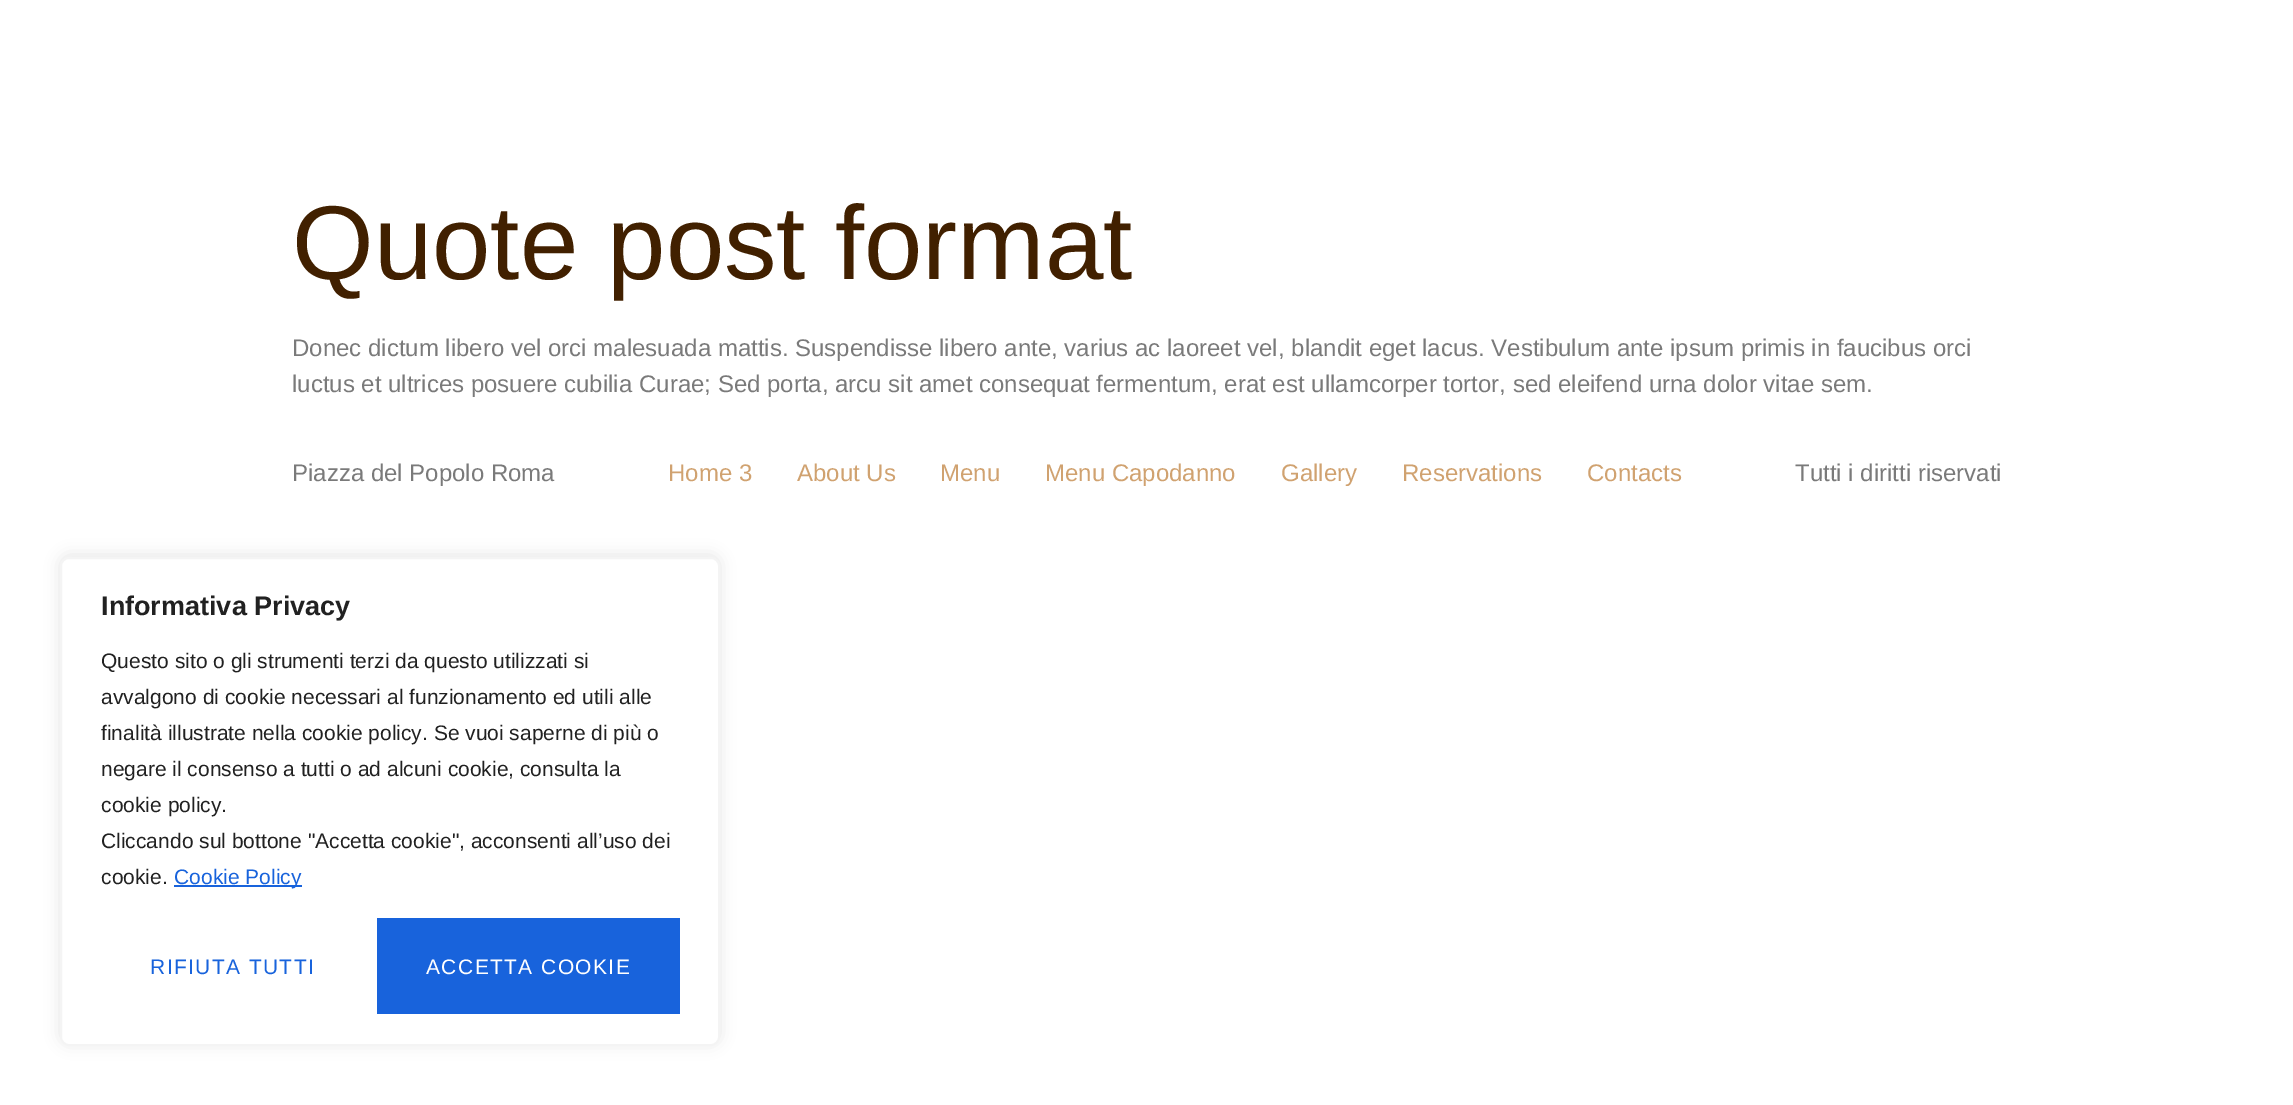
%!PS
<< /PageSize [2293 1105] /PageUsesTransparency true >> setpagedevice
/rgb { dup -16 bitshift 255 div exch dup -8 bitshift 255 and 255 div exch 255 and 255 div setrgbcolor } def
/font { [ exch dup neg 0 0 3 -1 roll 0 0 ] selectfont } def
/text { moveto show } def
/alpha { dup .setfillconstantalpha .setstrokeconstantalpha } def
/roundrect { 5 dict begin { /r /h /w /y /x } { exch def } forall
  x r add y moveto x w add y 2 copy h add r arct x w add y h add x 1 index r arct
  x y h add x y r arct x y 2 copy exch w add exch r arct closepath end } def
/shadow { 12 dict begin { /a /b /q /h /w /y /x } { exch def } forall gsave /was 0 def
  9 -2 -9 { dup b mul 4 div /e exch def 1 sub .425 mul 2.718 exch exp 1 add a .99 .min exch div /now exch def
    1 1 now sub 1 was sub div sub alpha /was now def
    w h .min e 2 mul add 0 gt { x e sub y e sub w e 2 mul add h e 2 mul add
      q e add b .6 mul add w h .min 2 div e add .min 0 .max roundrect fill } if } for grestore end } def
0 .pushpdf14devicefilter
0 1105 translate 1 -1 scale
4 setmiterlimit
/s1 { /LiberationSans-Regular 105 font 16#412000 rgb } def
/s2 { /LiberationSans-Regular 24 font 16#7A7A7A rgb } def
/s3 { /LiberationSans-Regular 24 font 16#D0A270 rgb } def
/s4 { /LiberationSans-Bold 27 font 16#212121 rgb } def
/s5 { /LiberationSans-Regular 21 font 16#212121 rgb } def
/s6 { /LiberationSans-Regular 21 font 16#1863DC rgb } def
16#FFFFFF rgb
0 0 2293 1105 rectfill
s1
(Quote post format) 292 279 text
s2
(Donec dictum libero vel orci malesuada mattis. Suspendisse libero ante, varius ac laoreet vel, blandit eget lacus. Vestibulum ante ipsum primis in faucibus orci) 292 356 text
(luctus et ultrices posuere cubilia Curae; Sed porta, arcu sit amet consequat fermentum, erat est ullamcorper tortor, sed eleifend urna dolor vitae sem.) 292 392 text
(Piazza del Popolo Roma) 292 481 text
s3
(Home 3) 668 481 text
(About Us) 797 481 text
(Menu) 940 481 text
(Menu Capodanno) 1045 481 text
(Gallery) 1281 481 text
(Reservations) 1402 481 text
(Contacts) 1587 481 text
s2
(Tutti i diritti riservati) 1795 481 text
16#ACABAB rgb
60 555 660 489 9 7.5 0.3 shadow
16#FFFFFF rgb
61 558 658 487 8 roundrect gsave fill grestore
16#F4F4F4 rgb
2 setlinewidth
stroke
s4
(Informativa Privacy) 101 615 text
s5
(Questo sito o gli strumenti terzi da questo utilizzati si) 101 668 text
(avvalgono di cookie necessari al funzionamento ed utili alle) 101 704 text
(finalità illustrate nella cookie policy. Se vuoi saperne di più o) 101 740 text
(negare il consenso a tutti o ad alcuni cookie, consulta la) 101 776 text
(cookie policy.) 101 812 text
(Cliccando sul bottone "Accetta cookie", acconsenti all’uso dei) 101 848 text
(cookie.) 101 884 text
16#1863DC rgb
174 885 128 2 rectfill
(Cookie Policy) 174 884 text
150 974 moveto 1.4 0 (RIFIUTA TUTTI) ashow
377 918 303 96 rectfill
16#FFFFFF rgb
426 974 moveto 1.4 0 (ACCETTA COOKIE) ashow
.poppdf14devicefilter showpage
